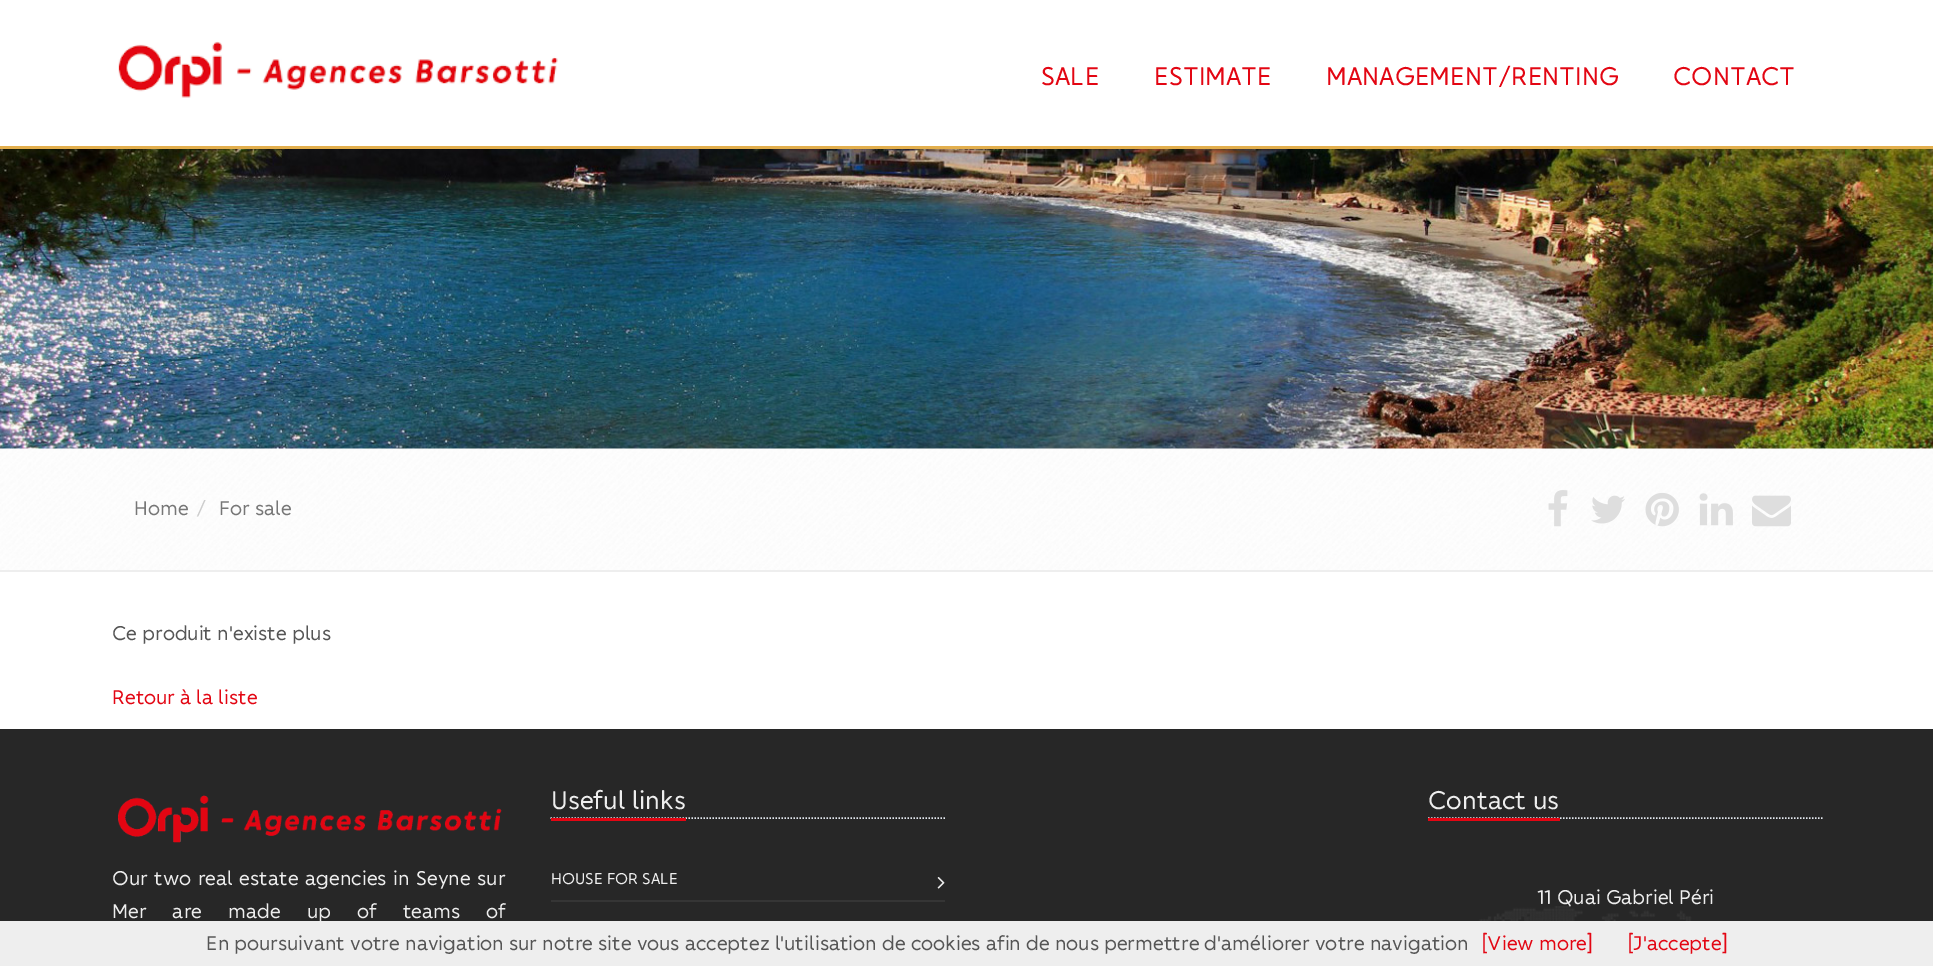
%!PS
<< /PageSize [1933 966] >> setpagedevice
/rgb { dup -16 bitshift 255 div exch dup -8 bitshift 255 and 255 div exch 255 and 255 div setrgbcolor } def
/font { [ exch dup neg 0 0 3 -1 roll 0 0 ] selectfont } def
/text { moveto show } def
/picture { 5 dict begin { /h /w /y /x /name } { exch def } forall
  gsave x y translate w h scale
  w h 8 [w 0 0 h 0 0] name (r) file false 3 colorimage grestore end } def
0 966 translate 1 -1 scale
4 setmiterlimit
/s1 { /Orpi-Regular 27 font 16#E30613 rgb } def
/s2 { /Orpi-Regular 21 font 16#777777 rgb } def
/s3 { /Orpi-Regular 21 font 16#CCCCCC rgb } def
/s4 { /Orpi-Regular 21 font 16#555555 rgb } def
/s5 { /Orpi-Regular 21 font 16#E30613 rgb } def
/s6 { /Orpi-Regular 27 font 16#EEEEEE rgb } def
/s7 { /Orpi-Regular 16.5 font 16#EEEEEE rgb } def
/s8 { /Orpi-Regular 21 font 16#EEEEEE rgb } def
16#FFFFFF rgb
0 0 1933 966 rectfill
16#E3AF4D rgb
0 146 1933 3 rectfill
(pic1.raw) 118 41 440 57 picture
s1
(SALE) 1041 85 text
(ESTIMATE) 1154 85 text
(MANAGEMENT/RENTING) 1326 85 text
(CONTACT) 1673 85 text
(pic2.raw) 0 149 1933 300 picture
(pic3.raw) 0 449 1933 121 picture
16#EEEEEE rgb
0 570 1933 2 rectfill
s2
(Home) 134 515 text
s3
(/) 196 515 text
s2
(For sale) 219 515 text
(pic4.raw) 1548 490 20 37 picture
(pic5.raw) 1591 495 34 29 picture
(pic6.raw) 1645 492 34 35 picture
(pic7.raw) 1699 493 34 33 picture
(pic8.raw) 1752 495 39 32 picture
s4
(Ce produit n'existe plus) 112 640 text
s5
(Retour à la liste) 112 704 text
16#272727 rgb
0 729 1933 192 rectfill
(pic9.raw) 118 795 384 48 picture
16#EEEEEE rgb
112 885 moveto 1.5 0 32 (Our two real estate agencies in Seyne sur) widthshow
112 918 moveto 21 0 32 (Mer are made up of teams of) widthshow
16#E4E9F0 rgb
1.5 setlinewidth
[1.5 1.5] 0 setdash
550.5 818 moveto 945 818 lineto stroke
16#E30613 rgb
551 818 135 3 rectfill
s6
(Useful links) 551 809 text
s7
(HOUSE FOR SALE) 551 884 text
(pic10.raw) 937 877 8 12 picture
16#353535 rgb
551 900 394 2 rectfill
(pic11.raw) 1478 906 214 15 picture
16#E4E9F0 rgb
1428 818 moveto 1822.5 818 lineto stroke
16#E30613 rgb
1428 818 132 3 rectfill
s6
(Contact us) 1428 809 text
s8
(11 Quai Gabriel Péri) 1537 904 text
0 921 1933 45 rectfill
s4
(En poursuivant votre navigation sur notre site vous acceptez l'utilisation de cookies afin de nous permettre d'améliorer votre navigation) 206 950 text
s5
([View more]) 1482 950 text
([J'accepte]) 1628 950 text
showpage
